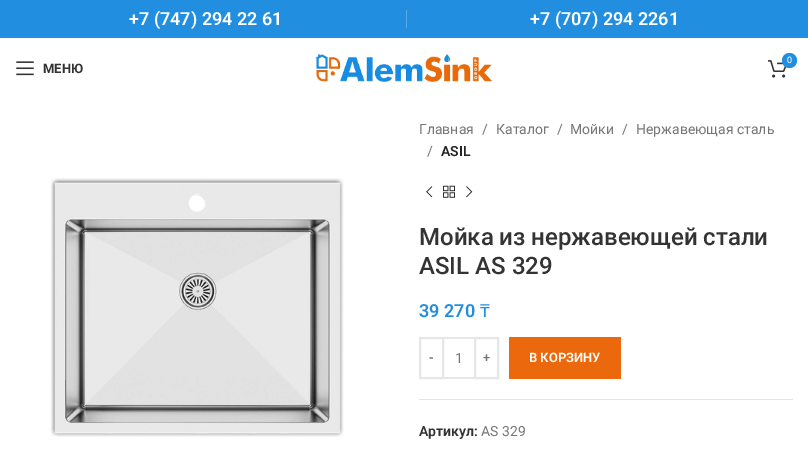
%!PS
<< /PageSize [808 457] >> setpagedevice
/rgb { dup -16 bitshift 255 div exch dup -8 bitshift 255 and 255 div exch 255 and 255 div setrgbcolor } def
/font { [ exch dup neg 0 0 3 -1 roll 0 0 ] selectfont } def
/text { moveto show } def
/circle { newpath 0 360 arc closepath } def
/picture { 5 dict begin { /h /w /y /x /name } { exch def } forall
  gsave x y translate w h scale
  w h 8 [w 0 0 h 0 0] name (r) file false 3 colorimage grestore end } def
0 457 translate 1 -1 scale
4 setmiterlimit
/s1 { /Roboto-SemiBold 18 font 16#FFFFFF rgb } def
/s2 { /Roboto-Regular 9 font 16#FFFFFF rgb } def
/s3 { /Roboto-Bold 13 font 16#333333 rgb } def
/s4 { /Roboto-Regular 14 font 16#767676 rgb } def
/s5 { /Roboto-SemiBold 14 font 16#242424 rgb } def
/s6 { /Roboto-Medium 24 font 16#333333 rgb } def
/s7 { /Roboto-SemiBold 18 font 16#228EE0 rgb } def
/s8 { /NotoSans-Regular 18 font 16#228EE0 rgb } def
/s9 { /Roboto-SemiBold 13 font 16#767676 rgb } def
/s10 { /Roboto-SemiBold 13 font 16#FFFFFF rgb } def
/s11 { /Roboto-SemiBold 14 font 16#333333 rgb } def
16#FFFFFF rgb
0 0 808 457 rectfill
16#228EE0 rgb
0 0 808 38 rectfill
s1
(+7 \(747\) 294 22 61) 129 25 text
16#59AAE8 rgb
406 10 1 18 rectfill
s1
(+7 \(707\) 294 2261) 530 25 text
(pic1.raw) 315 54 178 28 picture
(pic2.raw) 768 60 19 18 picture
16#228EE0 rgb
789.5 60.5 7.5 circle fill
s2
(0) 787 63 text
(pic3.raw) 16 61 18 15 picture
s3
(МЕНЮ) 43 73 text
(pic4.raw) 50 178 294 259 picture
s4
(Главная) 419 134 text
(/) 482 134 text
(Каталог) 496 134 text
(/) 557 134 text
(Мойки) 570 134 text
(/) 622 134 text
(Нержавеющая сталь) 636 134 text
(/) 427 156 text
s5
(ASIL) 441 156 text
(pic5.raw) 426 186 7 12 picture
(pic6.raw) 443 185 12 13 picture
(pic7.raw) 466 186 7 12 picture
s6
(Мойка из нержавеющей стали) 419 245 text
(ASIL AS 329) 419 274 text
s7
(39 270) 419 317 text
s8
(₸) 480 317 text
16#E6E6E6 rgb
2 setlinewidth
420 338 23 40 rectstroke
s9
(-) 429 362 text
16#E6E6E6 rgb
444 337 30 2 rectfill
444 377 30 2 rectfill
s4
(1) 455 363 text
16#E6E6E6 rgb
475 338 23 40 rectstroke
s9
(+) 483 362 text
16#EB690C rgb
509 337 112 42 rectfill
s10
(В КОРЗИНУ) 529 362 text
16#E4E4E4 rgb
419 399 374 1 rectfill
s11
(Артикул:) 419 436 text
s4
(AS 329) 481 436 text
showpage
